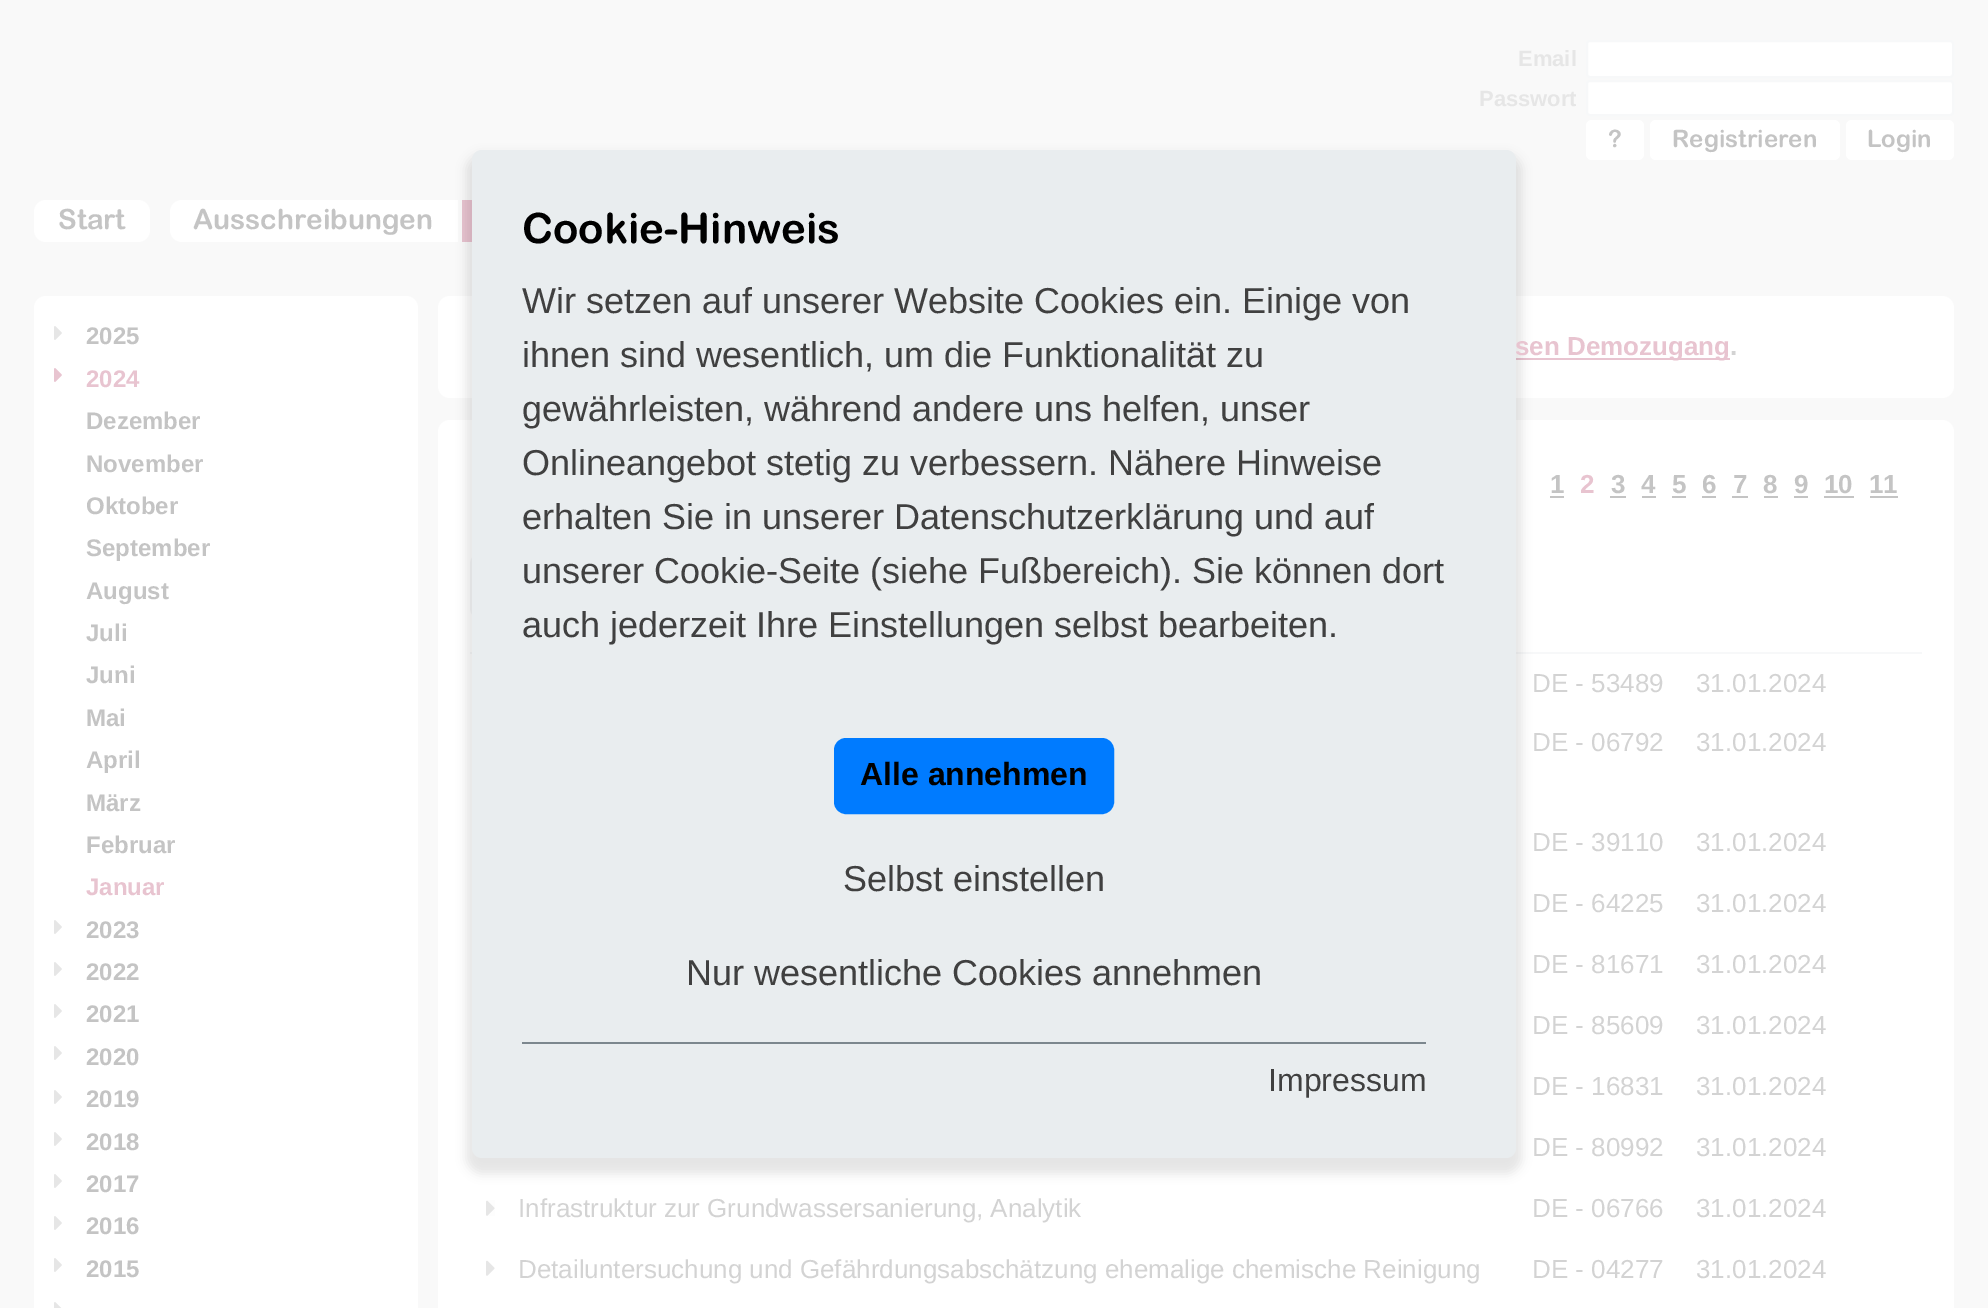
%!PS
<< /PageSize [1988 1308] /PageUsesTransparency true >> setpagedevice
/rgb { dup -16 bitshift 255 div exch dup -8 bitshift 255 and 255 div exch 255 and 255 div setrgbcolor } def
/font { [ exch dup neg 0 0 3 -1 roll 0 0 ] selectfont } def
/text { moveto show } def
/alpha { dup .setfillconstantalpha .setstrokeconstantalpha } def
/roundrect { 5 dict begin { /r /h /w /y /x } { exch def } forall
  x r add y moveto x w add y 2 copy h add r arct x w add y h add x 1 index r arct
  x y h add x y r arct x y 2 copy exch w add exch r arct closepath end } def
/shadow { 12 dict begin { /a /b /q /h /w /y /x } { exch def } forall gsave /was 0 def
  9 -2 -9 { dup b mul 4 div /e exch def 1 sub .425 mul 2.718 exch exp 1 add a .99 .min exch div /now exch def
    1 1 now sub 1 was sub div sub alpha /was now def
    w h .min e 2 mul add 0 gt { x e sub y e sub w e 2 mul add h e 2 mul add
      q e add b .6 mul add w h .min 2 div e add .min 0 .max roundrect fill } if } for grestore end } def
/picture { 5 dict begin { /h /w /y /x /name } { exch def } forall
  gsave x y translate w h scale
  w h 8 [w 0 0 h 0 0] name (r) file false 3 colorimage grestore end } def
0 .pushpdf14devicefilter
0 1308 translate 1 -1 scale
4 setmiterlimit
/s1 { /LiberationSans-Bold 22 font 16#E6E6E6 rgb } def
/s2 { /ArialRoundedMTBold-Bold 24 font 16#C4C4C4 rgb } def
/s3 { /ArialRoundedMTBold-Bold 28 font 16#C4C4C4 rgb } def
/s4 { /LiberationSans-Bold 26 font 16#E8C4D0 rgb } def
/s5 { /ArialRoundedMTBold-Bold 42 font 16#000000 rgb } def
/s6 { /LiberationSans-Regular 36 font 16#404040 rgb } def
/s7 { /LiberationSans-Bold 32 font 16#000000 rgb } def
/s8 { /LiberationSans-Regular 32 font 16#404040 rgb } def
/s9 { /LiberationSans-Bold 24 font 16#C4C4C4 rgb } def
/s10 { /LiberationSans-Bold 24 font 16#E8C4D0 rgb } def
/s11 { /LiberationSans-Bold 26 font 16#D3D3D3 rgb } def
/s12 { /LiberationSans-Bold 26 font 16#C4C4C4 rgb } def
/s13 { /LiberationSans-Regular 26 font 16#D3D3D3 rgb } def
16#F9F9F9 rgb
0 0 1988 1308 rectfill
s1
(Email) 1518 66 text
16#FFFFFF rgb
1587 41 366 36 3 roundrect gsave fill grestore
16#F7F8F9 rgb
2 setlinewidth
stroke
s1
(Passwort) 1479 106 text
16#FFFFFF rgb
1587 81 366 34 3 roundrect gsave fill grestore
16#F7F8F9 rgb
stroke
16#FFFFFF rgb
1586 120 58 40 6 roundrect fill
s2
(?) 1608 147 text
16#FFFFFF rgb
1650 120 190 40 6 roundrect fill
s2
(Registrieren) 1672 147 text
16#FFFFFF rgb
1846 120 108 40 6 roundrect fill
s2
(Login) 1867 147 text
16#FFFFFF rgb
34 200 116 42 12 roundrect fill
s3
(Start) 58 229 text
16#FFFFFF rgb
182 200 moveto 458 200 lineto 458 242 lineto 182 242 lineto 175.5 242 170 236.5 170 230 curveto 170 212 lineto 170 205.5 175.5 200 182 200 curveto closepath fill
s3
(Ausschreibungen) 193 229 text
16#E8C4D0 rgb
462 200 10 42 rectfill
16#FFFFFF rgb
438 296 1516 102 12 roundrect fill
16#E8C4D0 rgb
1516 358 214 2 rectfill
16#FFFFFF rgb
438 420 1516 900 12 roundrect fill
16#F7F8F9 rgb
471 553 330 66 11 roundrect stroke
470 652 1452 2 rectfill
16#000000 rgb
466 154 1056 1020 16 5 0.1 shadow
s4
(sen Demozugang) 1515 355 text
16#E9EDEF rgb
472 150 1044 1008 10 roundrect fill
s5
(Cookie-Hinweis) 522 243 text
s6
(Wir setzen auf unserer Website Cookies ein. Einige von) 522 313 text
(ihnen sind wesentlich, um die Funktionalität zu) 522 367 text
(gewährleisten, während andere uns helfen, unser) 522 421 text
(Onlineangebot stetig zu verbessern. Nähere Hinweise) 522 475 text
(erhalten Sie in unserer Datenschutzerklärung und auf) 522 529 text
(unserer Cookie-Seite \(siehe Fußbereich\). Sie können dort) 522 583 text
(auch jederzeit Ihre Einstellungen selbst bearbeiten.) 522 637 text
16#007BFF rgb
835 739 278 74 11 roundrect gsave fill grestore
stroke
s7
(Alle annehmen) 860 785 text
s6
(Selbst einstellen) 843 891 text
(Nur wesentliche Cookies annehmen) 686 985 text
16#7C878E rgb
522 1042 904 2 rectfill
s8
(Impressum) 1268 1091 text
16#FFFFFF rgb
34 296 384 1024 12 roundrect fill
(pic1.raw) 54 326 8 14 picture
s9
(2025) 86 344 text
(pic2.raw) 54 368 8 14 picture
s10
(2024) 86 387 text
s9
(Dezember) 86 429 text
(November) 86 472 text
(Oktober) 86 514 text
(September) 86 556 text
(August) 86 599 text
(Juli) 86 641 text
(Juni) 86 683 text
(Mai) 86 726 text
(April) 86 768 text
(März) 86 811 text
(Februar) 86 853 text
s10
(Januar) 86 895 text
(pic1.raw) 54 920 8 14 picture
s9
(2023) 86 938 text
(pic1.raw) 54 962 8 14 picture
(2022) 86 980 text
(pic1.raw) 54 1004 8 14 picture
(2021) 86 1022 text
(pic1.raw) 54 1046 8 14 picture
(2020) 86 1065 text
(pic1.raw) 54 1090 8 14 picture
(2019) 86 1107 text
(pic1.raw) 54 1132 8 14 picture
(2018) 86 1150 text
(pic1.raw) 54 1174 8 14 picture
(2017) 86 1192 text
(pic1.raw) 54 1216 8 14 picture
(2016) 86 1234 text
(pic1.raw) 54 1258 8 14 picture
(2015) 86 1277 text
(pic3.raw) 54 1302 8 6 picture
s11
(.) 1730 355 text
s12
(1) 1550 493 text
1550 496 14 2 rectfill
s4
(2) 1580 493 text
s12
(3) 1611 493 text
1610 496 16 2 rectfill
(4) 1641 493 text
1642 496 14 2 rectfill
(5) 1672 493 text
1672 496 14 2 rectfill
(6) 1702 493 text
1702 496 14 2 rectfill
(7) 1733 493 text
1732 496 16 2 rectfill
(8) 1763 493 text
1764 496 14 2 rectfill
(9) 1794 493 text
1794 496 14 2 rectfill
(10) 1824 493 text
1824 496 30 2 rectfill
(11) 1869 493 text
1870 496 28 2 rectfill
s13
(DE - 53489) 1532 692 text
(31.01.2024) 1696 692 text
(DE - 06792) 1532 751 text
(31.01.2024) 1696 751 text
(DE - 39110) 1532 851 text
(31.01.2024) 1696 851 text
(DE - 64225) 1532 912 text
(31.01.2024) 1696 912 text
(DE - 81671) 1532 973 text
(31.01.2024) 1696 973 text
(DE - 85609) 1532 1034 text
(31.01.2024) 1696 1034 text
(DE - 16831) 1532 1095 text
(31.01.2024) 1696 1095 text
(DE - 80992) 1532 1156 text
(31.01.2024) 1696 1156 text
(pic4.raw) 486 1200 9 16 picture
(Infrastruktur zur Grundwassersanierung, Analytik) 518 1217 text
(DE - 06766) 1532 1217 text
(31.01.2024) 1696 1217 text
(pic5.raw) 486 1260 9 16 picture
(Detailuntersuchung und Gefährdungsabschätzung ehemalige chemische Reinigung) 518 1278 text
(DE - 04277) 1532 1278 text
(31.01.2024) 1696 1278 text
.poppdf14devicefilter showpage
